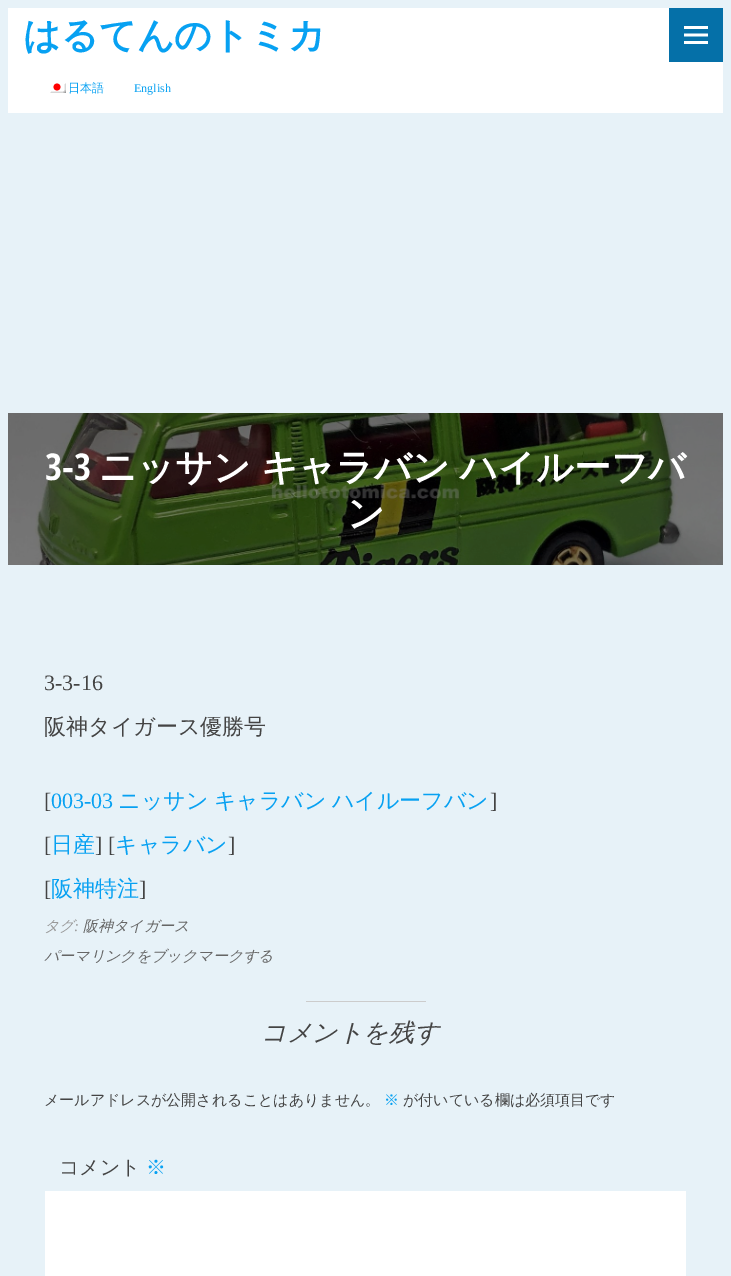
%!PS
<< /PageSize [731 1276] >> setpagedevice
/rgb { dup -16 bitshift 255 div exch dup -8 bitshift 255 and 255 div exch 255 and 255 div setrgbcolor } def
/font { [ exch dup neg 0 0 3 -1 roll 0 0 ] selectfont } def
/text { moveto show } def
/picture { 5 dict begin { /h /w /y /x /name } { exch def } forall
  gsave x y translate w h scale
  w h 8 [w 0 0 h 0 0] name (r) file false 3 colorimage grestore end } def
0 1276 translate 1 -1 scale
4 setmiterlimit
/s1 { /WenQuanYiZenHei-Bold 37 font 16#07A1F2 rgb } def
/s2 { /WenQuanYiZenHei-Medium 12 font 16#07A1F2 rgb } def
/s3 { /LiberationSerif-Regular 12 font 16#07A1F2 rgb } def
/s4 { /OpenSansCondensed-Bold 37 font 16#FFFFFF rgb } def
/s5 { /WenQuanYiZenHei-Bold 37 font 16#FFFFFF rgb } def
/s6 { /LiberationSerif-Regular 22 font 16#444444 rgb } def
/s7 { /WenQuanYiZenHei-Medium 22 font 16#444444 rgb } def
/s8 { /LiberationSerif-Regular 22 font 16#07A1F2 rgb } def
/s9 { /WenQuanYiZenHei-Medium 22 font 16#07A1F2 rgb } def
/s10 { /WenQuanYiZenHei-MediumItalic 15 font 16#999999 rgb } def
/s11 { /WenQuanYiZenHei-MediumItalic 15 font 16#666666 rgb } def
/s12 { /LiberationSerif-Italic 15 font 16#999999 rgb } def
/s13 { /WenQuanYiZenHei-MediumItalic 25 font 16#444444 rgb } def
/s14 { /WenQuanYiZenHei-Medium 15 font 16#444444 rgb } def
/s15 { /WenQuanYiZenHei-Medium 15 font 16#07A1F2 rgb } def
/s16 { /WenQuanYiZenHei-Medium 20 font 16#444444 rgb } def
/s17 { /WenQuanYiZenHei-Medium 20 font 16#07A1F2 rgb } def
16#E7F2F8 rgb
0 0 731 1276 rectfill
16#FFFFFF rgb
8 8 715 105 rectfill
s1
(はるてんのトミカ) 23 48 text
(pic1.raw) 50 83 16 10 picture
s2
(日本語) 68 92 text
s3
(English) 134 92 text
16#0570A8 rgb
669 8 54 54 rectfill
(pic2.raw) 684 26 24 18 picture
(pic3.raw) 8 413 715 152 picture
s4
(3-3) 45 480 text
/WenQuanYiZenHei-Bold 37 font
99 480 moveto -1 0 32 (ニッサン キャラバン ハイルーフバ) widthshow
(ン) 347 526 text
s6
(3-3-16) 44 690 text
s7
(阪神タイガース優勝号) 44 734 text
s6
([) 44 808 text
s8
(003-03) 51 808 text
/WenQuanYiZenHei-Medium 22 font
118 808 moveto -1 0 32 (ニッサン キャラバン ハイルーフバン) widthshow
s6
(]) 490 808 text
([) 44 852 text
s9
(日産) 51 852 text
s6
(] [) 95 852 text
s9
(キャラバン) 115 852 text
s6
(]) 228 852 text
([) 44 896 text
s9
(阪神特注) 51 896 text
s6
(]) 139 896 text
s10
(タグ) 44 931 text
s11
(阪神タイガース) 83 931 text
s12
(:) 74 931 text
s11
(パーマリンクをブックマークする) 44 961 text
16#CCCCCC rgb
306 1001 120 1 rectfill
s13
(コメントを残す) 261 1041 text
s14
(メールアドレスが公開されることはありません。) 44 1105 text
s15
(※) 384 1105 text
s14
(が付いている欄は必須項目です) 403 1105 text
s16
(コメント) 59 1174 text
s17
(※) 146 1174 text
16#FFFFFF rgb
45 1191 641 85 rectfill
showpage
